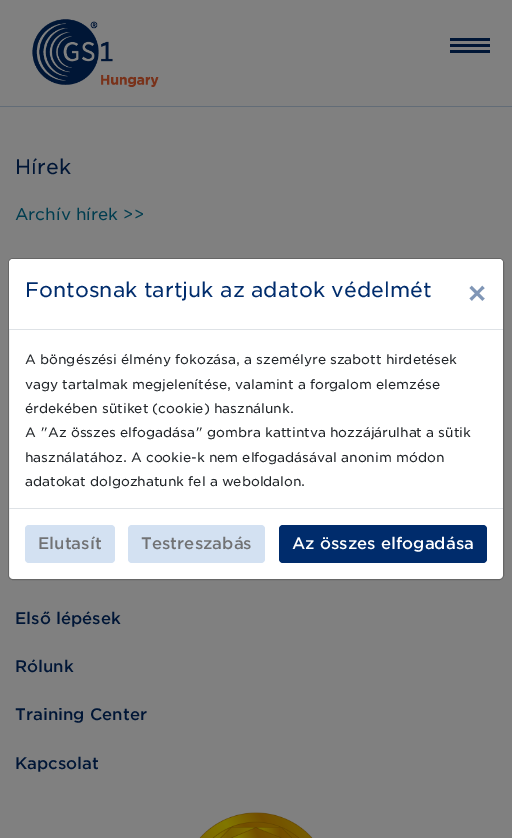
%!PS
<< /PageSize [512 838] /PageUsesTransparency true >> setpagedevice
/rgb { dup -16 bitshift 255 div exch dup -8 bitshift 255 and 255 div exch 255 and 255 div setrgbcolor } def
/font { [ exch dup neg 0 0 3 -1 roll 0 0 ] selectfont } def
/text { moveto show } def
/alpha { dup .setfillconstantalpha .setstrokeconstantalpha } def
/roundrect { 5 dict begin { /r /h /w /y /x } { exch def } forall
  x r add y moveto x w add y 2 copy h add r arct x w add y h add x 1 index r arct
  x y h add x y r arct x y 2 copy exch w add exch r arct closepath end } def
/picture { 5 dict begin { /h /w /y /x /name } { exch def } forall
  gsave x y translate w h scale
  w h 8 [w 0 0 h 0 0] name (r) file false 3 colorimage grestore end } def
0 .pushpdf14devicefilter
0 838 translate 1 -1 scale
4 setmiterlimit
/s1 { /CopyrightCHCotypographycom-Light 20.3 font 16#001636 rgb } def
/s2 { /CopyrightCHCotypographycom-Light 16.25 font 16#003D4F rgb } def
/s3 { /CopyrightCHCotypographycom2-Light 16 font 16#001636 rgb } def
/s4 { /CopyrightCHCotypographycom-Light 20.3 font 16#002C6C rgb } def
/s5 { /CopyrightCHCotypographycom2-Light 32 font 16#8096B6 rgb } def
/s6 { /CopyrightCHCotypographycom-Light 13 font 16#212529 rgb } def
/s7 { /CopyrightCHCotypographycom2-Light 16 font 16#717274 rgb } def
/s8 { /CopyrightCHCotypographycom2-Light 16 font 16#FFFFFF rgb } def
16#808080 rgb
0 0 512 838 rectfill
16#626C77 rgb
0 106 512 1 rectfill
(pic1.raw) 32 19 127 68 picture
16#001636 rgb
450 38 40 3 rectfill
450 44 40 3 rectfill
450 50 40 3 rectfill
s1
(Hírek) 15 174 text
s2
(Archív hírek >>) 15 220 text
s3
(Első lépések) 15 624 text
(Rólunk) 15 672 text
(Training Center) 15 720 text
(Kapcsolat) 15 769 text
(pic2.raw) 199 812 114 26 picture
16#FFFFFF rgb
9 259 494 320 4 roundrect fill
0.2 alpha
16#000000 rgb
8.5 258.5 495 321 4.5 roundrect stroke
1 alpha
16#FFFFFF rgb
13 259 moveto 499 259 lineto 501 259 503 261 503 263 curveto 503 330 lineto 9 330 lineto 9 263 lineto 9 261 11 259 13 259 curveto closepath fill
16#DEE2E6 rgb
9 329 494 1 rectfill
s4
(Fontosnak tartjuk az adatok védelmét) 25 297 text
s5
(×) 467 305 text
s6
(A böngészési élmény fokozása, a személyre szabott hirdetések) 25 364 text
(vagy tartalmak megjelenítése, valamint a forgalom elemzése) 25 389 text
(érdekében sütiket \(cookie\) használunk.) 25 413 text
(A "Az összes elfogadása" gombra kattintva hozzájárulhat a sütik) 25 437 text
(használatához. A cookie-k nem elfogadásával anonim módon) 25 462 text
(adatokat dolgozhatunk fel a weboldalon.) 25 486 text
16#DEE2E6 rgb
9 508 494 1 rectfill
16#D3E1F2 rgb
25 525 90 38 4 roundrect fill
s7
(Elutasít) 38 549 text
16#D3E1F2 rgb
128 525 137 38 4 roundrect fill
s7
(Testreszabás) 141 549 text
16#002C6C rgb
279 525 208 38 4 roundrect fill
s8
(Az összes elfogadása) 292 549 text
.poppdf14devicefilter showpage
